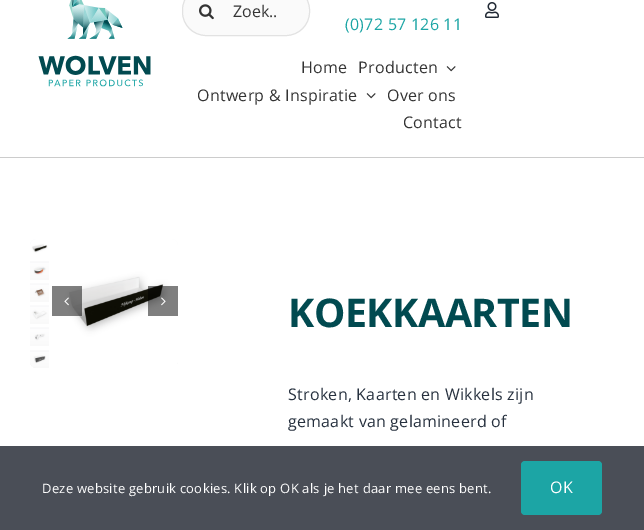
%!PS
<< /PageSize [644 530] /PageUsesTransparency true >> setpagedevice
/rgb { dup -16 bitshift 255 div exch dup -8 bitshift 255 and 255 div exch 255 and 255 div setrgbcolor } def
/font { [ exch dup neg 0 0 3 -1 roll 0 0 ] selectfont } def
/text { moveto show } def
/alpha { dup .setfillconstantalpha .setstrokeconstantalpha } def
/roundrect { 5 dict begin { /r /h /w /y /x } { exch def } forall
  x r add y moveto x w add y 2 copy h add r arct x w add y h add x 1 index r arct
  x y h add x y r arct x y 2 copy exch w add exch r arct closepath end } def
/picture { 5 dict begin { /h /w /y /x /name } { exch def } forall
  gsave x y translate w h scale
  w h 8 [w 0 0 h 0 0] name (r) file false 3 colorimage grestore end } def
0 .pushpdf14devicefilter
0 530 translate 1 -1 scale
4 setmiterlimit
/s1 { /OpenSans-Regular 16 font 16#333333 rgb } def
16#FFFFFF rgb
0 0 644 530 rectfill
(pic1.raw) 67 0 56 39 picture
16#FAFAFA rgb
182.5 -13.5 127 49 23.5 roundrect gsave fill grestore
16#E2E2E2 rgb
stroke
(pic2.raw) 199 4 15 16 picture
s1
(Zoek..) 233 17 text
(pic3.raw) 485 2 14 16 picture
16#1CA5A5 rgb
345 30 moveto 0.25 0 (\(0\)72 57 126 11) ashow
16#CCCCCC rgb
0 157 644 1 rectfill
(pic4.raw) 38 55 113 32 picture
16#333333 rgb
301 73 moveto 0.25 0 (Home) ashow
358 73 moveto 0.25 0 (Producten) ashow
(pic5.raw) 446 66 10 6 picture
197 101 moveto 0.25 0 (Ontwerp & Inspiratie) ashow
(pic5.raw) 366 93 10 6 picture
387 101 moveto 0.25 0 (Over ons) ashow
403 128 moveto 0.25 0 (Contact) ashow
(pic6.raw) 30 239 19 18 picture
gsave 30 261 moveto 49 261 lineto 49 280 lineto 30 280 lineto closepath clip newpath
<< /ShadingType 2 /ColorSpace /DeviceRGB /Coords [40 261 40 280] /Extend [true true] /Function << /FunctionType 2 /Domain [0 1] /C0 [0.984 0.984 0.988] /C1 [0.922 0.922 0.922] /N 1 >> >> shfill grestore
(pic7.raw) 30 263 19 17 picture
gsave 30 283 moveto 49 283 lineto 49 302 lineto 30 302 lineto closepath clip newpath
<< /ShadingType 2 /ColorSpace /DeviceRGB /Coords [40 283 40 302] /Extend [true true] /Function << /FunctionType 2 /Domain [0 1] /C0 [0.984 0.984 0.988] /C1 [0.922 0.922 0.922] /N 1 >> >> shfill grestore
(pic8.raw) 30 285 19 17 picture
gsave 30 305 moveto 49 305 lineto 49 324 lineto 30 324 lineto closepath clip newpath
<< /ShadingType 2 /ColorSpace /DeviceRGB /Coords [40 305 40 324] /Extend [true true] /Function << /FunctionType 2 /Domain [0 1] /C0 [0.984 0.984 0.988] /C1 [0.922 0.922 0.922] /N 1 >> >> shfill grestore
(pic9.raw) 30 307 19 17 picture
gsave 30 327 moveto 49 327 lineto 49 346 lineto 30 346 lineto closepath clip newpath
<< /ShadingType 2 /ColorSpace /DeviceRGB /Coords [40 327 40 346] /Extend [true true] /Function << /FunctionType 2 /Domain [0 1] /C0 [0.984 0.984 0.988] /C1 [0.922 0.922 0.922] /N 1 >> >> shfill grestore
(pic10.raw) 30 329 19 17 picture
gsave 30 350 moveto 49 350 lineto 49 368 lineto 36 368 lineto 32.5 368 30 365.5 30 362 curveto closepath clip newpath
<< /ShadingType 2 /ColorSpace /DeviceRGB /Coords [40 350 40 368] /Extend [true true] /Function << /FunctionType 2 /Domain [0 1] /C0 [0.984 0.984 0.988] /C1 [0.922 0.922 0.922] /N 1 >> >> shfill grestore
(pic11.raw) 30 352 19 16 picture
(pic12.raw) 53 239 125 125 picture
0.5 alpha
16#000000 rgb
52 286 30 30 rectfill
1 alpha
(pic13.raw) 64 297 5 9 picture
0.5 alpha
148 286 30 30 rectfill
1 alpha
(pic14.raw) 161 297 5 9 picture
/OpenSans-Bold 39.5 font
16#014A50 rgb
288 327 moveto -0.5 0 (KOEKKAARTEN) ashow
/OpenSans-Regular 16 font
16#26303E rgb
288 400 moveto 0.25 0 (Stroken, Kaarten en Wikkels zijn) ashow
288 427 moveto 0.25 0 (gemaakt van gelamineerd of) ashow
16#4A4E57 rgb
0 446 644 84 rectfill
/OpenSans-Regular 13 font
16#FFFFFF rgb
42 493 moveto 0.25 0 (Deze website gebruik cookies. Klik op OK als je het daar mee eens bent.) ashow
16#1CA5A5 rgb
521 461 81 54 4 roundrect fill
/OpenSans-Regular 16 font
16#FFFFFF rgb
550 493 moveto 0.25 0 (OK) ashow
.poppdf14devicefilter showpage
